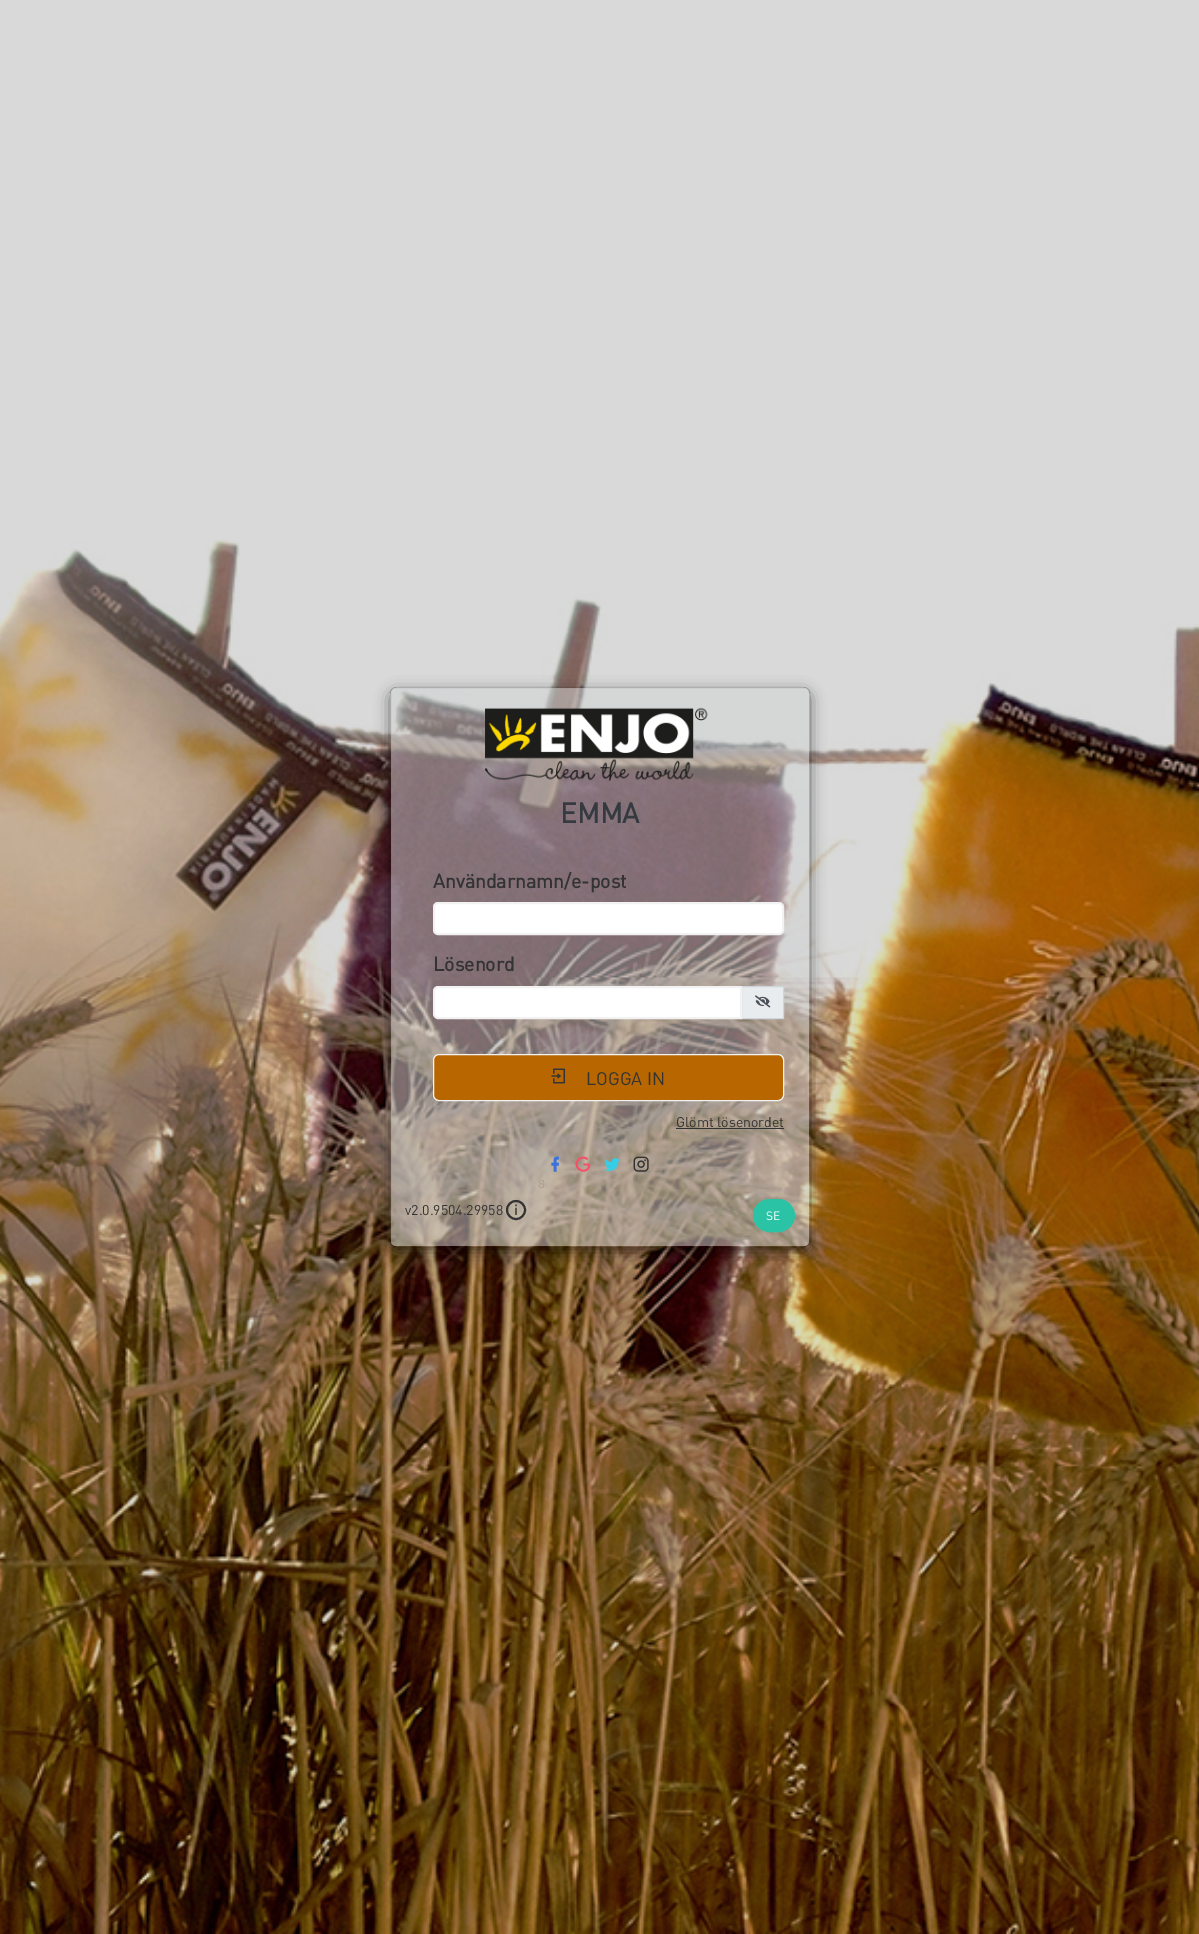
%!PS
<< /PageSize [1199 1934] /PageUsesTransparency true >> setpagedevice
/rgb { dup -16 bitshift 255 div exch dup -8 bitshift 255 and 255 div exch 255 and 255 div setrgbcolor } def
/font { [ exch dup neg 0 0 3 -1 roll 0 0 ] selectfont } def
/text { moveto show } def
/alpha { dup .setfillconstantalpha .setstrokeconstantalpha } def
/circle { newpath 0 360 arc closepath } def
/roundrect { 5 dict begin { /r /h /w /y /x } { exch def } forall
  x r add y moveto x w add y 2 copy h add r arct x w add y h add x 1 index r arct
  x y h add x y r arct x y 2 copy exch w add exch r arct closepath end } def
/shadow { 12 dict begin { /a /b /q /h /w /y /x } { exch def } forall gsave /was 0 def
  9 -2 -9 { dup b mul 4 div /e exch def 1 sub .425 mul 2.718 exch exp 1 add a .99 .min exch div /now exch def
    1 1 now sub 1 was sub div sub alpha /was now def
    w h .min e 2 mul add 0 gt { x e sub y e sub w e 2 mul add h e 2 mul add
      q e add b .6 mul add w h .min 2 div e add .min 0 .max roundrect fill } if } for grestore end } def
/picture { 5 dict begin { /h /w /y /x /name } { exch def } forall
  gsave x y translate w h scale
  w h 8 [w 0 0 h 0 0] name (r) file false 3 colorimage grestore end } def
0 .pushpdf14devicefilter
0 1934 translate 1 -1 scale
4 setmiterlimit
/s1 { /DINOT-Bold 28 font 16#343A40 rgb } def
/s2 { /DINOT-Bold 19.5 font 16#333333 rgb } def
/s3 { /DINOT-Regular 18 font 16#333333 rgb } def
/s4 { /DINOT-Regular 14 font 16#333333 rgb } def
/s5 { /LiberationSans-Regular 12 font 16#AC9F92 rgb } def
/s6 { /DINOT-Bold 14 font 16#333333 rgb } def
/s7 { /DINOT-Regular 12 font 16#FFFFFF rgb } def
16#D9D9D9 rgb
0 0 1199 1934 rectfill
(pic1.raw) 0 539 1199 1395 picture
gsave
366 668 moveto 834 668 lineto 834 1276 lineto 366 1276 lineto closepath 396 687 moveto 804 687 lineto 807.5 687 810 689.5 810 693 curveto 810 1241 lineto 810 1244.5 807.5 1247 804 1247 curveto 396 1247 lineto 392.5 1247 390 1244.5 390 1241 curveto 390 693 lineto 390 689.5 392.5 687 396 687 curveto closepath eoclip newpath
16#000000 rgb
390 692 420 560 6 7.5 0.5 shadow
grestore
0.3 alpha
16#D1D3D4 rgb
391 688 418 558 5 roundrect fill
0.2 alpha
16#000000 rgb
390.5 687.5 419 559 5.5 roundrect stroke
0.3 alpha
16#D1D3D4 rgb
396 688 moveto 804 688 lineto 807 688 809 690 809 693 curveto 809 838 lineto 391 838 lineto 391 693 lineto 391 690 393 688 396 688 curveto closepath fill
1 alpha
(pic2.raw) 485 707 223 74 picture
s1
(EMMA) 560 823 text
0.3 alpha
16#D1D3D4 rgb
391 838 418 312 rectfill
1 alpha
s2
(Användarnamn/e-post) 433 888 text
16#FFFFFF rgb
434 903 349 31 4 roundrect gsave fill grestore
16#F2F2F2 rgb
2 setlinewidth
stroke
s2
(Lösenord) 433 971 text
16#E9ECEF rgb
741.5 986.5 moveto 783.5 986.5 lineto 783.5 1018.5 lineto 741.5 1018.5 lineto closepath gsave fill grestore
16#CED4DA rgb
1 setlinewidth
stroke
16#FFFFFF rgb
438 987 moveto 741 987 lineto 741 1018 lineto 438 1018 lineto 436 1018 434 1016 434 1014 curveto 434 991 lineto 434 989 436 987 438 987 curveto closepath gsave fill grestore
16#F2F2F2 rgb
2 setlinewidth
stroke
(pic3.raw) 755 995 16 13 picture
16#B86700 rgb
433.5 1054.5 350 46 5.5 roundrect gsave fill grestore
16#F2F2F2 rgb
1 setlinewidth
stroke
(pic4.raw) 551 1068 14 16 picture
s3
(LOGGA IN) 586 1085 text
s4
(Glömt lösenordet) 676 1127 text
676 1128 108 1 rectfill
0.3 alpha
16#D1D3D4 rgb
391 1150 moveto 809 1150 lineto 809 1241 lineto 809 1244 807 1246 804 1246 curveto 396 1246 lineto 393 1246 391 1244 391 1241 curveto closepath fill
1 alpha
(pic5.raw) 551 1156 8 16 picture
(pic6.raw) 575 1156 16 16 picture
(pic7.raw) 604 1158 16 13 picture
(pic8.raw) 633 1156 16 16 picture
s4
(v2.0.9504.29958) 405 1215 text
s5
(8) 538 1188 text
16#333333 rgb
2 setlinewidth
516 1210 9 circle stroke
s6
(i) 514 1215 text
16#2BC3A5 rgb
753.5 1199.5 41 32 16 roundrect gsave fill grestore
1 setlinewidth
stroke
s7
(SE) 766 1220 text
.poppdf14devicefilter showpage
